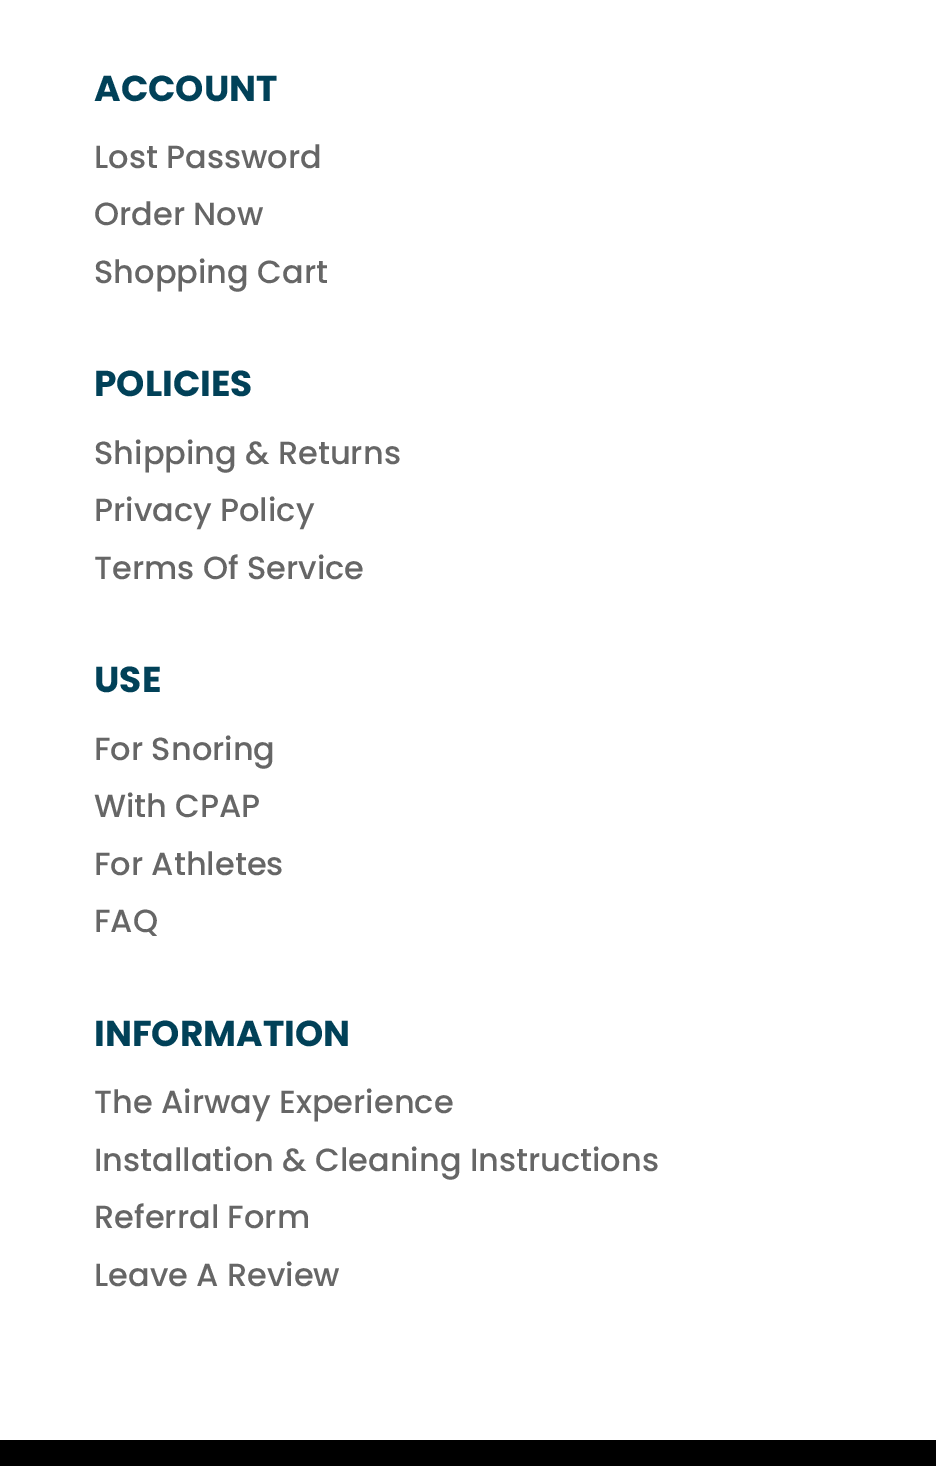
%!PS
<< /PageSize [936 1466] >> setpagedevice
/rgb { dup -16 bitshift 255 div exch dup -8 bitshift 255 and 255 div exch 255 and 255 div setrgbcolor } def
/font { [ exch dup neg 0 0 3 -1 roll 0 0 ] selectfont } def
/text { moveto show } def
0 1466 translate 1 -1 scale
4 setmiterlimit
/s1 { /Poppins-Bold 36 font 16#014158 rgb } def
/s2 { /Poppins-Medium 32 font 16#666666 rgb } def
16#FFFFFF rgb
0 0 936 1466 rectfill
s1
(ACCOUNT) 94 101 text
s2
(Lost Password) 94 168 text
(Order Now) 94 225 text
(Shopping Cart) 94 283 text
s1
(POLICIES) 94 396 text
s2
(Shipping & Returns) 94 464 text
(Privacy Policy) 94 521 text
(Terms Of Service) 94 579 text
s1
(USE) 94 692 text
s2
(For Snoring) 94 760 text
(With CPAP) 94 817 text
(For Athletes) 94 875 text
(FAQ) 94 932 text
s1
(INFORMATION) 94 1046 text
s2
(The Airway Experience) 94 1113 text
(Installation & Cleaning Instructions) 94 1171 text
(Referral Form) 94 1228 text
(Leave A Review) 94 1286 text
16#000000 rgb
0 1440 936 26 rectfill
showpage
